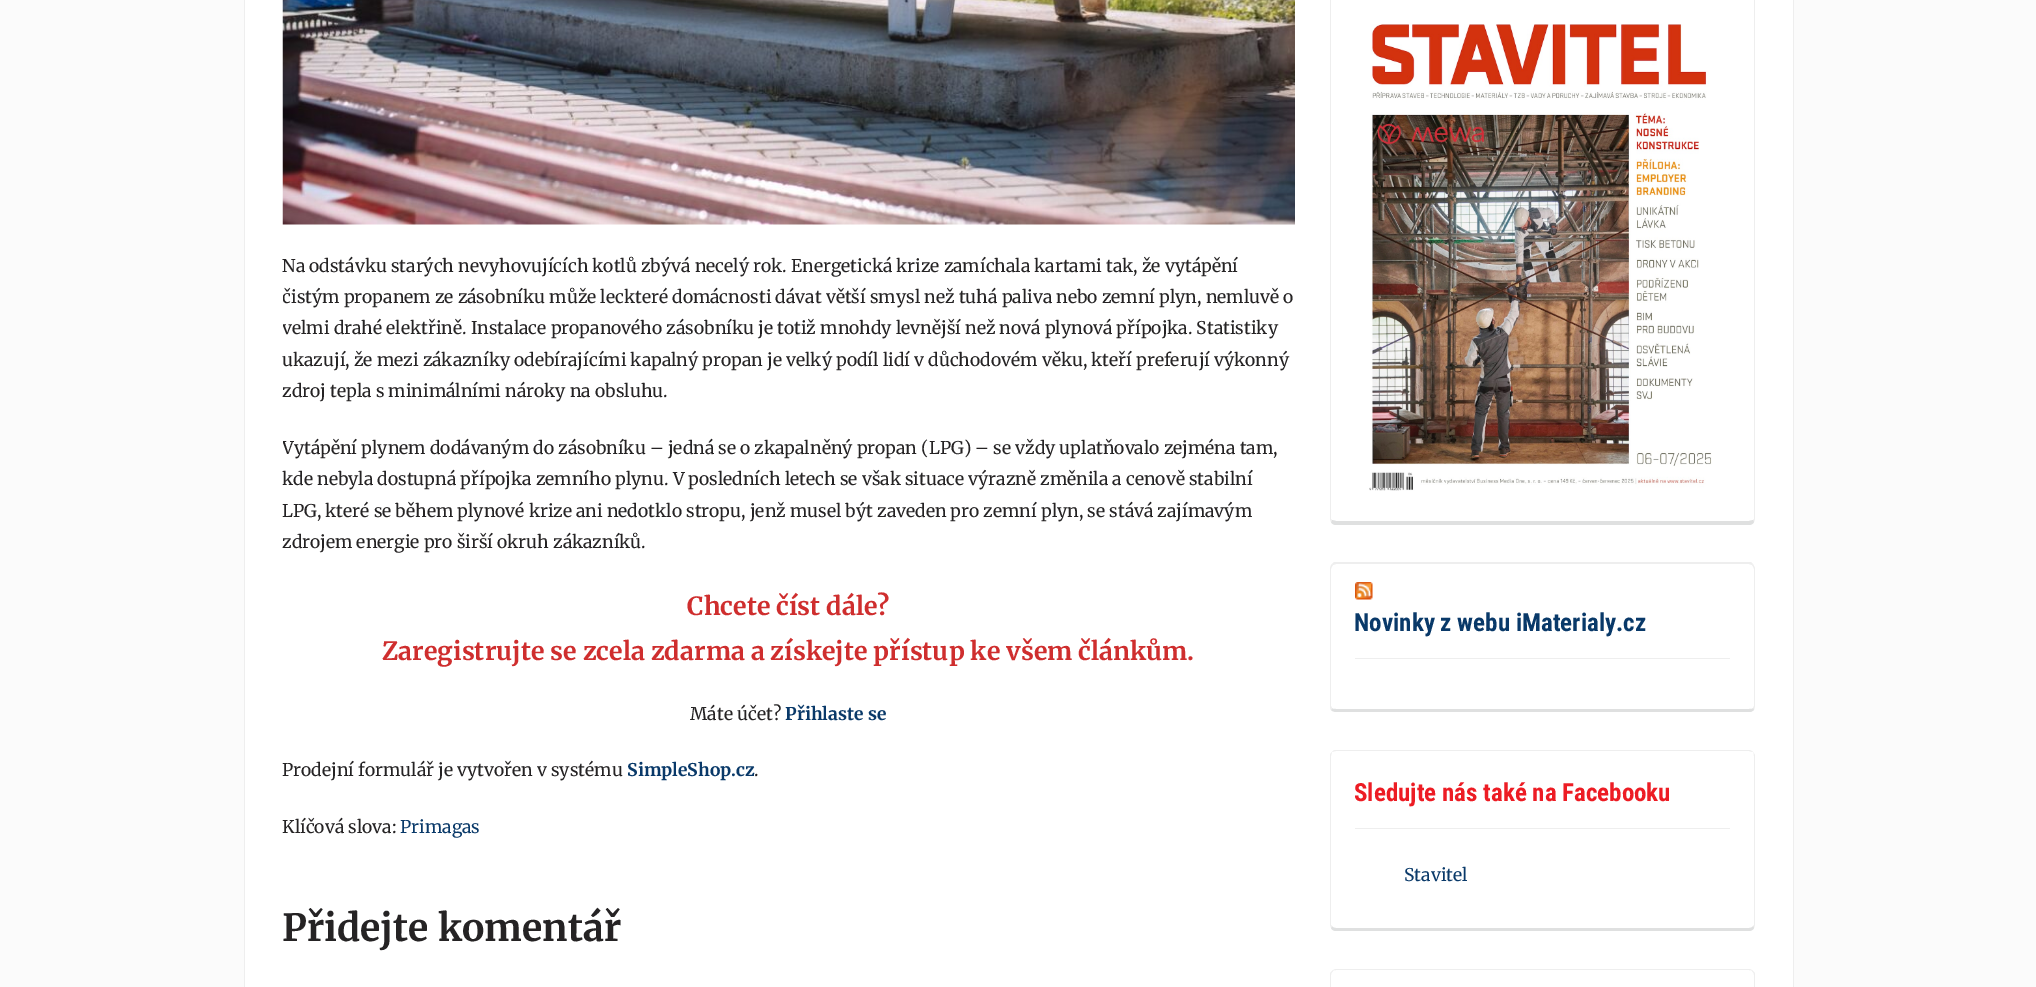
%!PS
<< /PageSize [2036 987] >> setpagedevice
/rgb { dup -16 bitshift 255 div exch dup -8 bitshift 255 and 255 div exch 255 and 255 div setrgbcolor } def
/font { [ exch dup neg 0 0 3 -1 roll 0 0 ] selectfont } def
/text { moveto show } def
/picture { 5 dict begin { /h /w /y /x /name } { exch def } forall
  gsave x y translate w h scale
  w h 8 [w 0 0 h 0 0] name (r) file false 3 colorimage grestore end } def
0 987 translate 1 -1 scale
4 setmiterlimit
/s1 { /Merriweather-Regular 17.5 font 16#252324 rgb } def
/s2 { /Merriweather-Bold 25 font 16#CF2E2E rgb } def
/s3 { /Merriweather-Bold 17.5 font 16#093969 rgb } def
/s4 { /Merriweather-Regular 17.5 font 16#093969 rgb } def
/s5 { /Merriweather-Bold 37.5 font 16#252324 rgb } def
/s6 { /RobotoCondensed-Bold 25 font 16#093969 rgb } def
/s7 { /RobotoCondensed-Bold 25 font 16#ED1C24 rgb } def
16#FBFBFB rgb
0 0 2036 987 rectfill
16#FFFFFF rgb
245 0 1548 987 rectfill
16#EEEEEE rgb
1793 0 1 987 rectfill
244 0 1 987 rectfill
(pic1.raw) 282 0 1013 225 picture
s1
(Na odstávku starých nevyhovujících kotlů zbývá necelý rok. Energetická krize zamíchala kartami tak, že vytápění) 282 272 text
gsave
283 0 1012 805 rectclip
(čistým propanem ze zásobníku může leckteré domácnosti dávat větší smysl než tuhá paliva nebo zemní plyn, nemluvě o) 282 303 text
(velmi drahé elektřině. Instalace propanového zásobníku je totiž mnohdy levnější než nová plynová přípojka. Statistiky) 282 334 text
grestore
(ukazují, že mezi zákazníky odebírajícími kapalný propan je velký podíl lidí v důchodovém věku, kteří preferují výkonný) 282 366 text
(zdroj tepla s minimálními nároky na obsluhu.) 282 397 text
gsave
283 0 1012 805 rectclip
(Vytápění plynem dodávaným do zásobníku – jedná se o zkapalněný propan \(LPG\) – se vždy uplatňovalo zejména tam,) 282 454 text
grestore
(kde nebyla dostupná přípojka zemního plynu. V posledních letech se však situace výrazně změnila a cenově stabilní) 282 485 text
(LPG, které se během plynové krize ani nedotklo stropu, jenž musel být zaveden pro zemní plyn, se stává zajímavým) 282 517 text
(zdrojem energie pro širší okruh zákazníků.) 282 548 text
s2
(Chcete číst dále?) 687 615 text
(Zaregistrujte se zcela zdarma a získejte přístup ke všem článkům.) 382 660 text
s1
(Máte účet?) 690 720 text
s3
(Přihlaste se) 785 720 text
s1
(Prodejní formulář je vytvořen v systému) 282 776 text
s3
(SimpleShop.cz) 627 776 text
s1
(.) 754 776 text
(Klíčová slova:) 282 833 text
s4
(Primagas) 400 833 text
s5
(Přidejte komentář) 282 941 text
16#EEEEEE rgb
1753 -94 moveto 1754 -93 1755 -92 1755 -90 curveto 1755 519 lineto 1754 522 lineto 1753 520 lineto 1754 519 lineto 1754 -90 lineto 1754 -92 1753 -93 1752 -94 curveto closepath fill
16#DFE0E0 rgb
1336 525 moveto 1749 525 lineto 1751 525 1753 524 1754 522 curveto 1753 520 lineto 1749 521 lineto 1336 521 lineto 1332 520 lineto 1331 522 lineto 1332 524 1334 525 1336 525 curveto closepath fill
16#EEEEEE rgb
1330 -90 moveto 1330 519 lineto 1331 522 lineto 1332 520 lineto 1331 519 lineto 1331 -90 lineto 1331 -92 1332 -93 1333 -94 curveto 1332 -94 lineto 1331 -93 1330 -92 1330 -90 curveto closepath fill
(pic2.raw) 1369 24 343 467 picture
1336 564 moveto 1333 565 lineto 1332 564 lineto 1334 562 lineto 1751 562 lineto 1753 564 lineto 1752 565 lineto 1749 564 lineto closepath fill
1755 706 moveto 1755 568 lineto 1753 564 lineto 1752 565 lineto 1753 566 1754 568 1754 569 curveto 1754 706 lineto 1753 708 lineto 1754 710 lineto closepath fill
16#DFE0E0 rgb
1754 710 moveto 1751 712 lineto 1336 712 lineto 1334 712 1332 711 1331 710 curveto 1332 708 lineto 1332 709 1334 709 1336 709 curveto 1749 709 lineto 1751 709 1753 709 1753 708 curveto closepath fill
16#EEEEEE rgb
1330 569 moveto 1330 706 lineto 1330 707 1330 709 1331 710 curveto 1332 708 lineto 1331 706 lineto 1331 569 lineto 1331 568 1332 566 1333 565 curveto 1332 564 lineto 1331 565 1330 567 1330 569 curveto closepath fill
1355 658 375 1 rectfill
(pic3.raw) 1355 582 18 18 picture
s6
(Novinky z webu iMaterialy.cz) 1354 631 text
16#EEEEEE rgb
1336 750 moveto 1334 750 1333 751 1332 752 curveto 1333 752 1334 751 1336 751 curveto 1749 751 lineto 1750 751 1752 752 1753 752 curveto 1752 751 1750 750 1749 750 curveto closepath fill
1755 925 moveto 1755 755 lineto 1753 752 lineto 1754 753 1754 754 1754 756 curveto 1754 925 lineto 1753 926 lineto 1754 928 lineto closepath fill
16#DFE0E0 rgb
1754 928 moveto 1753 930 1751 931 1749 931 curveto 1336 931 lineto 1334 931 1332 930 1331 928 curveto 1332 926 lineto 1332 927 1334 928 1336 928 curveto 1749 928 lineto 1751 928 1753 927 1753 926 curveto closepath fill
16#EEEEEE rgb
1330 756 moveto 1330 925 lineto 1331 928 lineto 1332 926 lineto 1331 925 lineto 1331 756 lineto 1331 754 1332 753 1332 752 curveto 1331 753 1330 754 1330 756 curveto closepath fill
1355 828 375 1 rectfill
s7
(Sledujte nás také na Facebooku) 1354 801 text
s4
(Stavitel) 1404 881 text
16#EEEEEE rgb
1336 969 moveto 1335 969 1333 970 1332 971 curveto 1333 971 lineto 1333 970 1335 970 1336 970 curveto 1749 970 lineto 1750 970 1752 970 1752 971 curveto 1753 971 lineto 1752 970 1750 969 1749 969 curveto closepath fill
1753 971 moveto 1754 972 1755 973 1755 975 curveto 1755 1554 lineto 1754 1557 lineto 1753 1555 lineto 1754 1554 lineto 1754 975 lineto 1754 973 1753 972 1752 971 curveto closepath fill
1330 975 moveto 1330 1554 lineto 1331 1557 lineto 1332 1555 lineto 1331 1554 lineto 1331 975 lineto 1331 973 1332 972 1333 971 curveto 1332 971 lineto 1331 972 1330 973 1330 975 curveto closepath fill
showpage
